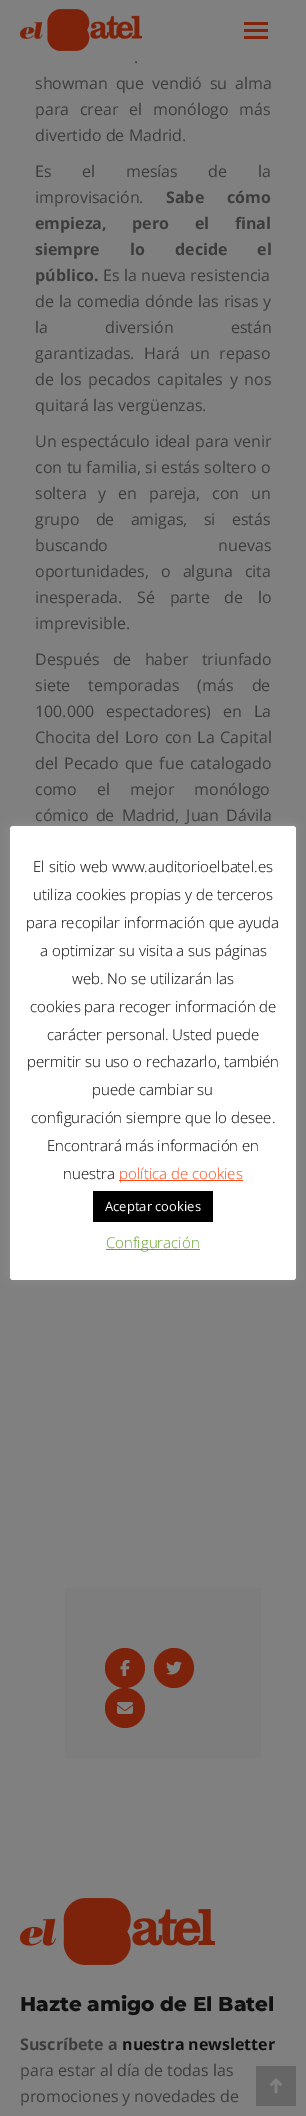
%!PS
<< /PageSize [306 2116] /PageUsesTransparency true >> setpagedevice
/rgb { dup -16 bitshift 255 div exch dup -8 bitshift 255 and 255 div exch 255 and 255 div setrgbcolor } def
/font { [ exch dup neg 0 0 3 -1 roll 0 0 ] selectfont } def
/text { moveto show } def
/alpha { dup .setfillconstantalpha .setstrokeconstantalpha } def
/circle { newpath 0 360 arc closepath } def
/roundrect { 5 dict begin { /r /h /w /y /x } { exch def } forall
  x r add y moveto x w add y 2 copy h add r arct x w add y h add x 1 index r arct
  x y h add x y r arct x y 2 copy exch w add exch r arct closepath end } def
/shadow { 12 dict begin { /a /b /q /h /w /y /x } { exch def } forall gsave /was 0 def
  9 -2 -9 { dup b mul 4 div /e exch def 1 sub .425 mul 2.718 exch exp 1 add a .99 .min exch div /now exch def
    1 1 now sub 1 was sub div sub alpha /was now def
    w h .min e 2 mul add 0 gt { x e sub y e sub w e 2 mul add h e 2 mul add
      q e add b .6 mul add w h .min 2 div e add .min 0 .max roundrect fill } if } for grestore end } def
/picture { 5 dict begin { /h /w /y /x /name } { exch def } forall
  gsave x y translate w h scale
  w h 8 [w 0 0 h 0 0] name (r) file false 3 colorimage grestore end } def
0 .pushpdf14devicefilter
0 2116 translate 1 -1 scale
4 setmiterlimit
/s1 { /OpenSans-Regular 16 font 16#3C3C3C rgb } def
/s2 { /OpenSans-Bold 16 font 16#3C3C3C rgb } def
/s3 { /Montserrat-ExtraBold 20 font 16#111111 rgb } def
/s4 { /OpenSans-Bold 16 font 16#111111 rgb } def
/s5 { /OpenSans-Light 15 font 16#000000 rgb } def
/s6 { /OpenSans-Light 15 font 16#FF4717 rgb } def
/s7 { /OpenSans-Regular 13 font 16#FFFFFF rgb } def
/s8 { /OpenSans-Light 15 font 16#62A329 rgb } def
16#808080 rgb
0 0 306 2116 rectfill
(pic1.raw) 20 9 122 42 picture
16#80240C rgb
244 22 24 3 rectfill
244 29 24 3 rectfill
244 36 24 3 rectfill
/OpenSans-Regular 16 font
16#3C3C3C rgb
134 63 moveto 16 0 32 (.) widthshow
35 89 moveto 3.5 0 32 (showman que vendió su alma) widthshow
35 115 moveto 6.5 0 32 (para crear el monólogo más) widthshow
(divertido de Madrid.) 35 141 text
35 177 moveto 26.5 0 32 (Es el mesías de la) widthshow
(improvisación.) 35 203 text
/OpenSans-Bold 16 font
166 203 moveto 19 0 32 (Sabe cómo) widthshow
35 229 moveto 21.5 0 32 (empieza, pero el final) widthshow
35 255 moveto 26 0 32 (siempre lo decide el) widthshow
(público.) 35 281 text
s1
(Es la nueva resistencia) 103 281 text
35 307 moveto 0.75 0 32 (de la comedia dónde las risas y) widthshow
35 333 moveto 53 0 32 (la diversión están) widthshow
35 359 moveto 5.5 0 32 (garantizadas. Hará un repaso) widthshow
35 385 moveto 2.5 0 32 (de los pecados capitales y nos) widthshow
(quitará las vergüenzas.) 35 411 text
35 447 moveto 0.5 0 32 (Un espectáculo ideal para venir) widthshow
35 473 moveto 0.25 0 32 (con tu familia, si estás soltero o) widthshow
35 499 moveto 7.75 0 32 (soltera y en pareja, con un) widthshow
35 525 moveto 12 0 32 (grupo de amigas, si estás) widthshow
35 551 moveto 106 0 32 (buscando nuevas) widthshow
35 577 moveto 7.75 0 32 (oportunidades, o alguna cita) widthshow
35 603 moveto 10.5 0 32 (inesperada. Sé parte de lo) widthshow
(imprevisible.) 35 629 text
35 665 moveto 9 0 32 (Después de haber triunfado) widthshow
35 691 moveto 14 0 32 (siete temporadas \(más de) widthshow
35 717 moveto 7.75 0 32 (100.000 espectadores\) en La) widthshow
35 743 moveto 1.5 0 32 (Chocita del Loro con La Capital) widthshow
35 769 moveto 2 0 32 (del Pecado que fue catalogado) widthshow
35 795 moveto 16 0 32 (como el mejor monólogo) widthshow
35 821 moveto 3 0 32 (cómico de Madrid, Juan Dávila) widthshow
16#7D7D7D rgb
65 1588 196 170 rectfill
16#7D230B rgb
125 1668 20 circle fill
(pic2.raw) 120 1660 10 16 picture
174 1668 20 circle fill
(pic3.raw) 166 1661 16 14 picture
125 1708 20 circle fill
(pic4.raw) 117 1702 16 12 picture
(pic5.raw) 20 1898 195 67 picture
s3
(Hazte amigo de El Batel) 20 2011 text
s2
(Suscríbete a) 20 2050 text
s4
(nuestra newsletter) 122 2050 text
s1
(para estar al día de todas las) 20 2076 text
(promociones y novedades de) 20 2102 text
16#666666 rgb
256 2066 40 40 rectfill
(pic6.raw) 270 2078 12 16 picture
16#ACABAB rgb
10 825 286 454 3 5 0.3 shadow
16#FFFFFF rgb
10 826 286 454 3 roundrect fill
s5
(El sitio web www.auditorioelbatel.es) 33 872 text
(utiliza cookies propias y de terceros) 33 900 text
(para recopilar información que ayuda) 26 928 text
(a optimizar su visita a sus páginas) 40 956 text
(web. No se utilizarán las) 72 984 text
(cookies para recoger información de) 30 1012 text
(carácter personal. Usted puede) 47 1040 text
(permitir su uso o rechazarlo, también) 27 1067 text
(puede cambiar su) 92 1095 text
(configuración siempre que lo desee.) 31 1123 text
(Encontrará más información en) 47 1151 text
(nuestra) 63 1179 text
16#FF4717 rgb
119 1180 124 1 rectfill
(política de cookies) 119 1179 text
16#000000 rgb
93 1191 120 31 rectfill
s7
(Aceptar cookies) 105 1211 text
16#62A329 rgb
106 1249 94 1 rectfill
s8
(Configuración) 106 1248 text
.poppdf14devicefilter showpage
